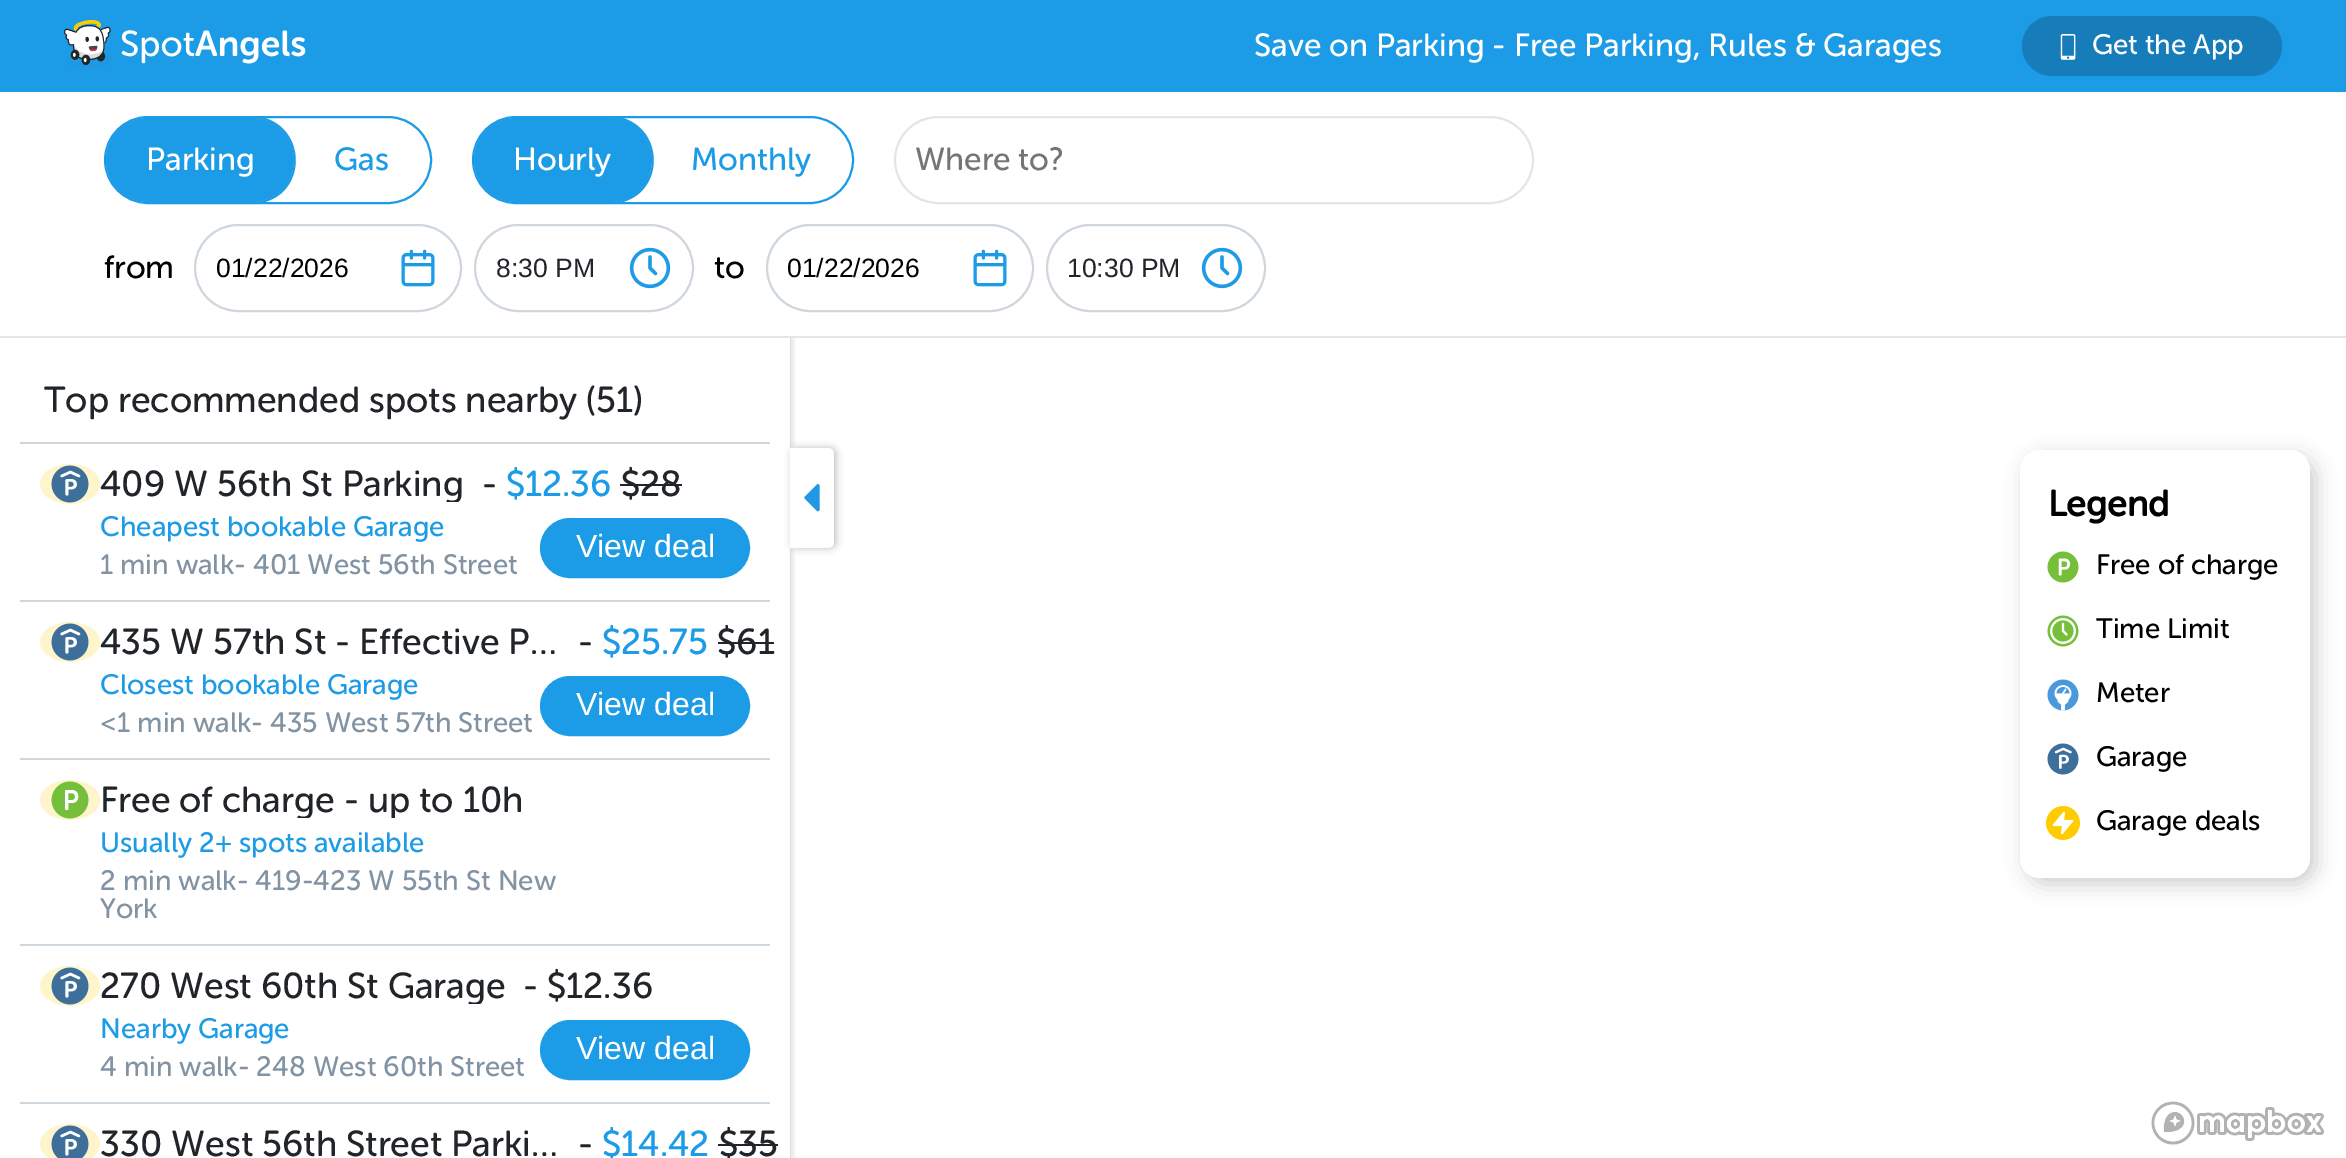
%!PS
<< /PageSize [2346 1158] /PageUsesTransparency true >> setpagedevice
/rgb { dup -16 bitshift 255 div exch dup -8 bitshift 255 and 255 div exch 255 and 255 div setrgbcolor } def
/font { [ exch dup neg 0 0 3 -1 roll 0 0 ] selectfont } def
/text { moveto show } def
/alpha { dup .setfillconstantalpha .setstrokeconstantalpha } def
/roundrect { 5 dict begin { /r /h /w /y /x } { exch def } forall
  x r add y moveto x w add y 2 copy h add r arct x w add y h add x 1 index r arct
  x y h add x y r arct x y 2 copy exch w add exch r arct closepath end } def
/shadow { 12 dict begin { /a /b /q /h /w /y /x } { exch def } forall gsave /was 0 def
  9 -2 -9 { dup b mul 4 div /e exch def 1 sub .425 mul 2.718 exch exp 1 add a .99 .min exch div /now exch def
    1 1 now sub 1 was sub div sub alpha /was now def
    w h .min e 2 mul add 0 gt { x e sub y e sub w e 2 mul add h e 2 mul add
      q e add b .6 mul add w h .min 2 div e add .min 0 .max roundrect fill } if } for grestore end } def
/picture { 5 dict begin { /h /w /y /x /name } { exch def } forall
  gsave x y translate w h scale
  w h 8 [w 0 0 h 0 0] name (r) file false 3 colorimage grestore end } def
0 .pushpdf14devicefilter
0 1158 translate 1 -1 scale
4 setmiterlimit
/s1 { /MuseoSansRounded-Regular 32 font 16#FFFFFF rgb } def
/s2 { /MuseoSansRounded-Regular 28 font 16#FFFFFF rgb } def
/s3 { /MuseoSansRounded-Regular 32 font 16#1C9BE6 rgb } def
/s4 { /MuseoSansRounded-Regular 32 font 16#757575 rgb } def
/s5 { /MuseoSansRounded-Regular 32 font 16#000000 rgb } def
/s6 { /LiberationSans-Regular 26.5 font 16#000000 rgb } def
/s7 { /LiberationSans-Regular 26.5 font 16#212529 rgb } def
/s8 { /MuseoSansRounded-Regular 36 font 16#212529 rgb } def
/s9 { /MuseoSansRounded-Regular 36 font 16#1C9BE6 rgb } def
/s10 { /MuseoSansRounded-Regular 28 font 16#1C9BE6 rgb } def
/s11 { /LiberationSans-Regular 32 font 16#FFFFFF rgb } def
/s12 { /MuseoSansRounded-Regular 28 font 16#8293A3 rgb } def
/s13 { /MuseoSansRounded-Bold 36 font 16#000000 rgb } def
/s14 { /MuseoSansRounded-Regular 28 font 16#000000 rgb } def
16#FFFFFF rgb
0 0 2346 1158 rectfill
16#1C9BE6 rgb
0 0 2346 92 rectfill
(pic1.raw) 64 20 242 48 picture
s1
(Save on Parking - Free Parking, Rules & Garages) 1254 56 text
16#167DBA rgb
2022 16 260 60 30 roundrect fill
(pic2.raw) 2060 34 16 26 picture
s2
(Get the App) 2092 54 text
gsave
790 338 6 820 rectclip
16#000000 rgb
0 338 790 820 0 4 0.25 shadow
grestore
0 331 794 5 rectfill
16#E0E6EA rgb
0 336 2346 2 rectfill
16#1C9BE6 rgb
2 setlinewidth
105 117 326 86 43 roundrect stroke
265 118 moveto 306 131 306 190 265 202 curveto 252 202 lineto 275 202 294 183 294 160 curveto 294 137 275 118 252 118 curveto closepath fill
106 118 188 84 42 roundrect fill
s1
(Parking) 146 170 text
s3
(Gas) 334 170 text
473 117 380 86 43 roundrect stroke
623 118 moveto 664 131 664 190 623 202 curveto 610 202 lineto 633 202 652 183 652 160 curveto 652 137 633 118 610 118 curveto closepath fill
474 118 178 84 42 roundrect fill
s1
(Hourly) 513 170 text
s3
(Monthly) 691 170 text
16#E0E6EA rgb
895 117 638 86 43 roundrect stroke
s4
(Where to?) 915 170 text
s5
(from) 104 278 text
(pic3.raw) 401 249 34 38 picture
16#CED6DE rgb
195 225 266 86 43 roundrect stroke
s6
(01/22/2026) 216 277 text
(pic4.raw) 629 247 42 42 picture
16#CED6DE rgb
475 225 218 86 43 roundrect stroke
s7
(8:30 PM) 496 277 text
s5
(to) 714 278 text
(pic3.raw) 973 249 34 38 picture
16#CED6DE rgb
767 225 266 86 43 roundrect stroke
s6
(01/22/2026) 787 277 text
(pic4.raw) 1201 247 42 42 picture
16#CED6DE rgb
1047 225 218 86 43 roundrect stroke
s7
(10:30 PM) 1067 277 text
s8
(Top recommended spots nearby \(51\)) 44 412 text
16#CED6DE rgb
20 442 750 2 rectfill
20 600 750 2 rectfill
16#FFF5CC rgb
70 464 moveto 86.5 464 100 473 100 484 curveto 100 495 86.5 504 70 504 curveto 53.5 504 40 495 40 484 curveto 40 473 53.5 464 70 464 curveto closepath fill
(pic5.raw) 51 465 38 38 picture
gsave
100 466 364 36 rectclip
s8
(409 W 56th St Parking) 100 496 text
grestore
s8
(-) 482 496 text
s9
($12.36) 506 496 text
s8
($28) 621 496 text
620 484 62 2 rectfill
s10
(Cheapest bookable Garage) 100 536 text
541 519 208 58 29 roundrect gsave fill grestore
stroke
s11
(View deal) 576 557 text
s12
(1 min walk- 401 West 56th Street) 100 574 text
16#CED6DE rgb
20 758 750 2 rectfill
16#FFF5CC rgb
70 622 moveto 86.5 622 100 631 100 642 curveto 100 653 86.5 662 70 662 curveto 53.5 662 40 653 40 642 curveto 40 631 53.5 622 70 622 curveto closepath fill
(pic5.raw) 51 623 38 38 picture
s8
(435 W 57th St - Effective P…) 100 654 text
(-) 578 654 text
s9
($25.75) 602 654 text
s8
($61) 717 654 text
718 642 56 2 rectfill
s10
(Closest bookable Garage) 100 694 text
541 677 208 58 29 roundrect gsave fill grestore
stroke
s11
(View deal) 576 715 text
s12
(<1 min walk- 435 West 57th Street) 100 732 text
16#CED6DE rgb
20 944 750 2 rectfill
16#FFF5CC rgb
70 780 moveto 86.5 780 100 789 100 800 curveto 100 811 86.5 820 70 820 curveto 53.5 820 40 811 40 800 curveto 40 789 53.5 780 70 780 curveto closepath fill
(pic6.raw) 51 781 38 38 picture
gsave
100 782 424 36 rectclip
s8
(Free of charge - up to 10h) 100 812 text
grestore
s10
(Usually 2+ spots available) 100 852 text
s12
(2 min walk- 419-423 W 55th St New) 100 890 text
(York) 100 918 text
16#CED6DE rgb
20 1102 750 2 rectfill
16#FFF5CC rgb
70 966 moveto 86.5 966 100 975 100 986 curveto 100 997 86.5 1006 70 1006 curveto 53.5 1006 40 997 40 986 curveto 40 975 53.5 966 70 966 curveto closepath fill
(pic5.raw) 51 967 38 38 picture
gsave
100 968 406 36 rectclip
s8
(270 West 60th St Garage) 100 998 text
grestore
s8
(- $12.36) 523 998 text
s10
(Nearby Garage) 100 1038 text
541 1021 208 58 29 roundrect gsave fill grestore
stroke
s11
(View deal) 576 1059 text
s12
(4 min walk- 248 West 60th Street) 100 1076 text
16#FFF5CC rgb
70 1124 moveto 86.5 1124 100 1133 100 1144 curveto 100 1155 86.5 1164 70 1164 curveto 53.5 1164 40 1155 40 1144 curveto 40 1133 53.5 1124 70 1124 curveto closepath fill
(pic7.raw) 51 1125 38 33 picture
s8
(330 West 56th Street Parki…) 100 1156 text
(-) 578 1156 text
s9
($14.42) 602 1156 text
s8
($35) 719 1156 text
718 1144 60 2 rectfill
16#000000 rgb
792 448 44 100 6 4 0.25 shadow
16#FFFFFF rgb
790 448 moveto 828 448 lineto 831.5 448 834 450.5 834 454 curveto 834 542 lineto 834 545.5 831.5 548 828 548 curveto 790 548 lineto closepath fill
(pic8.raw) 804 484 16 28 picture
16#CCCCCC rgb
2026 456 290 428 20 10 1 shadow
16#FFFFFF rgb
2020 450 290 428 20 roundrect fill
s13
(Legend) 2048 516 text
(pic9.raw) 2047 551 32 32 picture
s14
(Free of charge) 2096 574 text
(pic10.raw) 2047 615 32 32 picture
(Time Limit) 2096 638 text
(pic11.raw) 2047 679 32 32 picture
(Meter) 2096 702 text
(pic12.raw) 2047 743 32 32 picture
(Garage) 2096 766 text
(pic13.raw) 2046 806 34 34 picture
(Garage deals) 2096 830 text
(pic14.raw) 2151 1101 173 44 picture
.poppdf14devicefilter showpage
